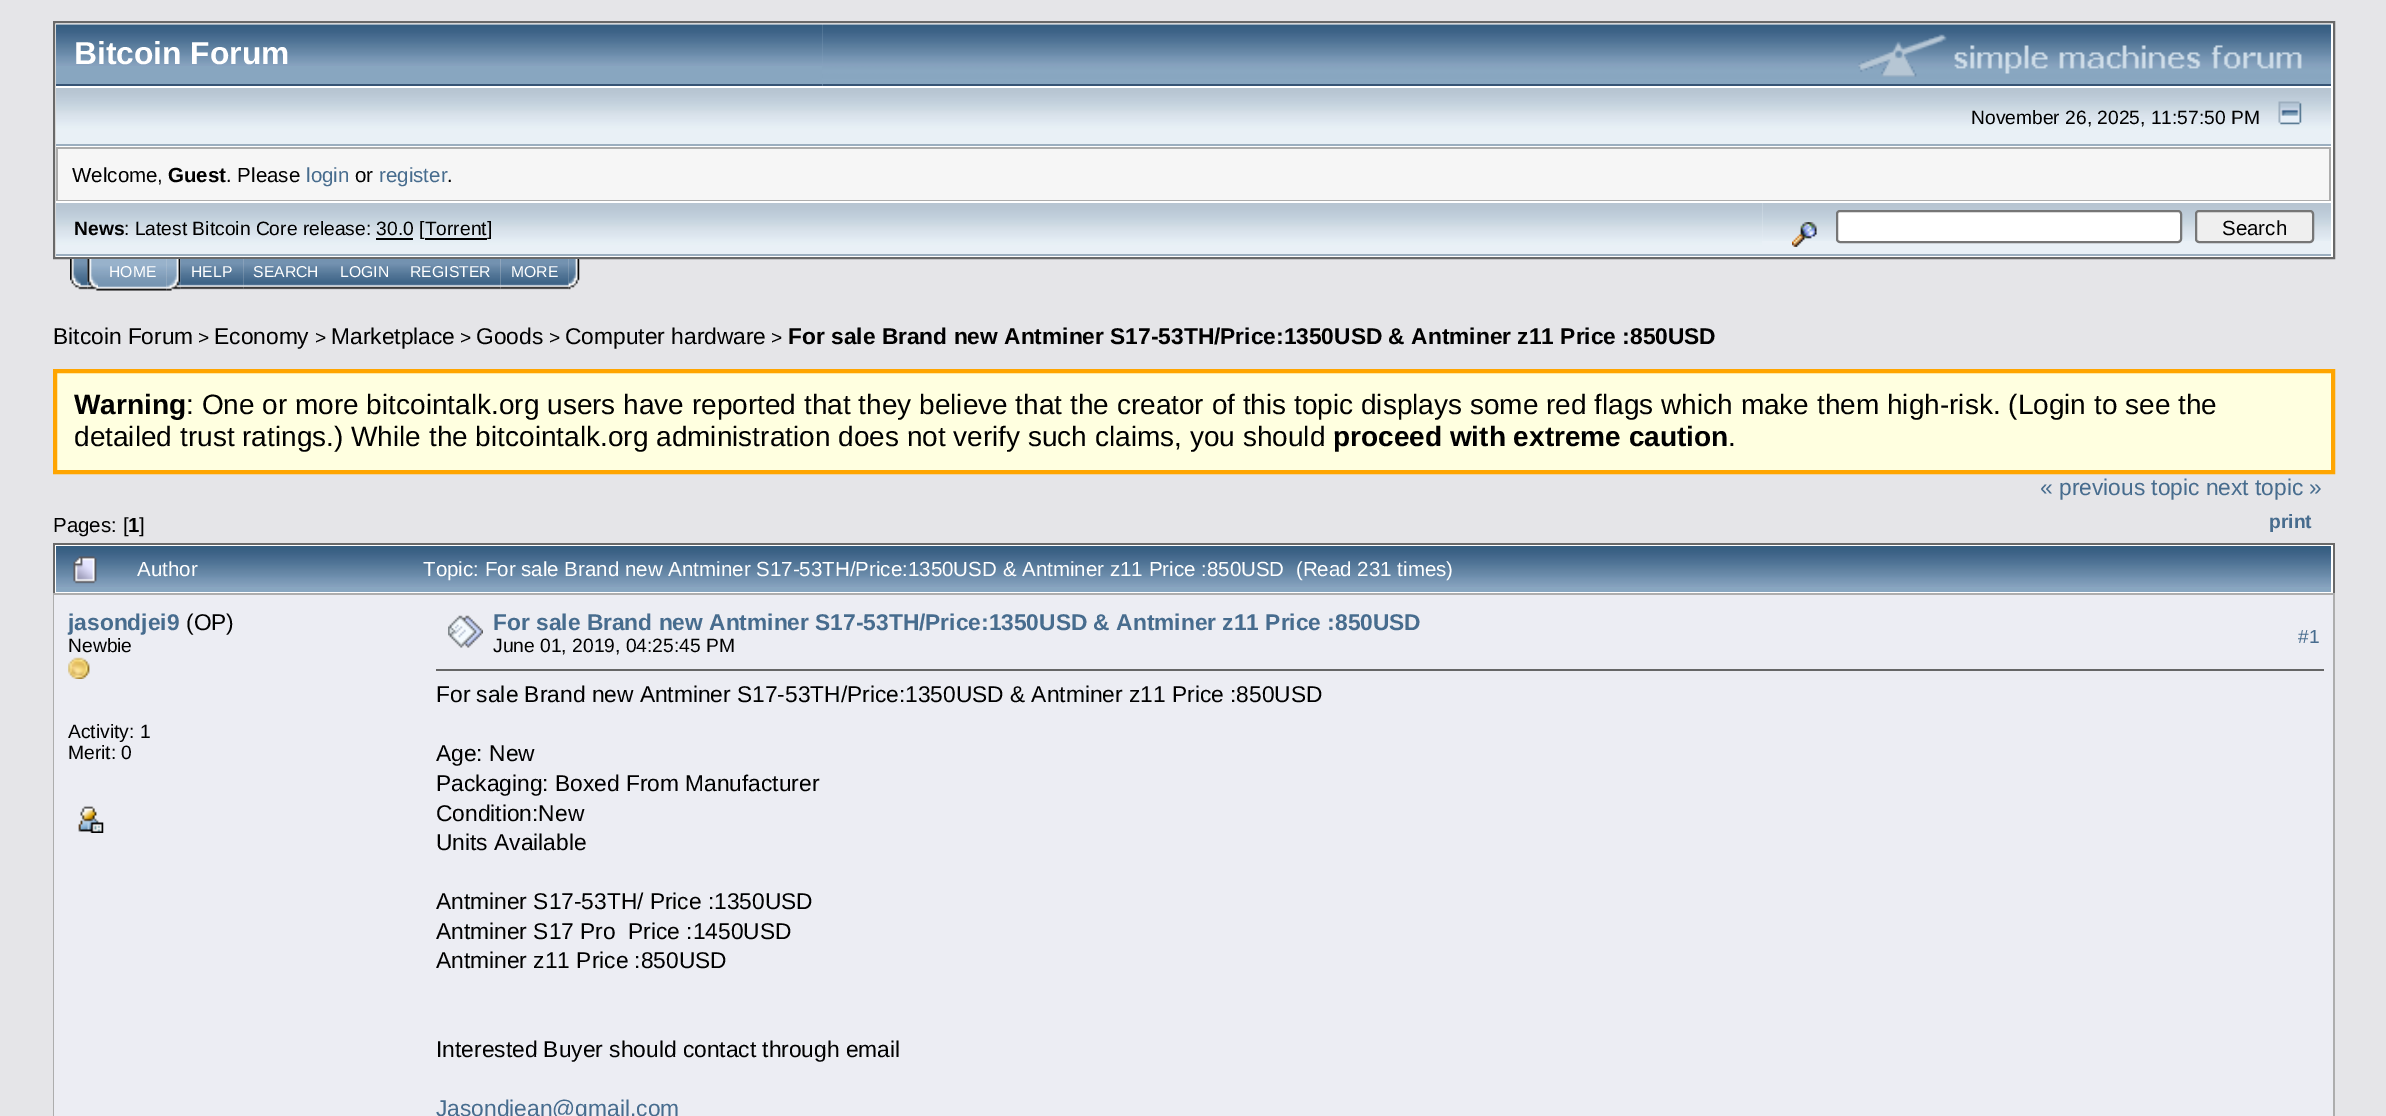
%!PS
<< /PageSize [2386 1116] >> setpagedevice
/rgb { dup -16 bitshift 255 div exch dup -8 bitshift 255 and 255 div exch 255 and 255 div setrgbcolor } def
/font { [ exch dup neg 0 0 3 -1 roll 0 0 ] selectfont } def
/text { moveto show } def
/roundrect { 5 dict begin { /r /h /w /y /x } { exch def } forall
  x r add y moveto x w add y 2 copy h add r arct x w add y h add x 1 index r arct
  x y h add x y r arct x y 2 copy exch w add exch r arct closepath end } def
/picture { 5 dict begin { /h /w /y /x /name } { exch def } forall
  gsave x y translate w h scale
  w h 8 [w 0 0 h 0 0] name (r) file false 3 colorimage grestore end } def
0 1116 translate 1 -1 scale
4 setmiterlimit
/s1 { /LiberationSans-Bold 31.75 font 16#FFFFFF rgb } def
/s2 { /LiberationSans-Regular 19.25 font 16#000000 rgb } def
/s3 { /LiberationSans-Regular 20.5 font 16#000000 rgb } def
/s4 { /LiberationSans-Bold 20.5 font 16#000000 rgb } def
/s5 { /LiberationSans-Regular 20.5 font 16#476C8E rgb } def
/s6 { /LiberationSans-Bold 19.25 font 16#000000 rgb } def
/s7 { /LiberationSans-Regular 15.75 font 16#FFFFFF rgb } def
/s8 { /LiberationSans-Regular 22.75 font 16#000000 rgb } def
/s9 { /LiberationSans-Regular 19 font 16#000000 rgb } def
/s10 { /LiberationSans-Bold 22.75 font 16#000000 rgb } def
/s11 { /LiberationSans-Bold 28 font 16#000000 rgb } def
/s12 { /LiberationSans-Regular 28 font 16#000000 rgb } def
/s13 { /LiberationSans-Regular 22.75 font 16#476C8E rgb } def
/s14 { /LiberationSans-Bold 19.25 font 16#476C8E rgb } def
/s15 { /LiberationSans-Regular 20.53 font 16#FFFFFF rgb } def
/s16 { /LiberationSans-Bold 22.75 font 16#476C8E rgb } def
/s17 { /LiberationSans-Regular 19 font 16#476C8E rgb } def
16#E5E5E8 rgb
0 0 2386 1116 rectfill
16#FFFFFF rgb
54 22 moveto 2334 22 lineto 2334 258 lineto 54 258 lineto closepath gsave fill grestore
16#696969 rgb
2 setlinewidth
stroke
16#88A6C0 rgb
56 25 767 59 rectfill
(pic1.raw) 56 24 767 42 picture
16#375576 rgb
56 84 767 2 rectfill
s1
(Bitcoin Forum) 74 64 text
(pic2.raw) 822 24 1509 62 picture
16#375576 rgb
823 84 1508 2 rectfill
(pic3.raw) 1858 34 444 43 picture
(pic4.raw) 56 88 2275 56 picture
16#9BAEBF rgb
56 144 2275 2 rectfill
s2
(November 26, 2025, 11:57:50 PM) 1971 124 text
(pic5.raw) 2278 101 24 24 picture
16#ADADAD rgb
56 147 2275 54 rectfill
16#F6F6F6 rgb
58 149 2271 51 rectfill
s3
(Welcome,) 72 182 text
s4
(Guest) 168 182 text
s3
(. Please) 226 182 text
s5
(login) 306 182 text
s3
(or) 355 182 text
s5
(register) 379 182 text
s3
(.) 447 182 text
(pic6.raw) 56 203 1706 51 picture
16#9BAEBF rgb
56 254 2275 2 rectfill
s6
(News) 74 235 text
s2
(: Latest Bitcoin Core release: 30.0 [Torrent) 124 235 text
376 238 37 2 rectfill
425 238 62 2 rectfill
(]) 487 235 text
16#E9F0F6 rgb
1762 203 569 51 rectfill
(pic7.raw) 1762 203 569 38 picture
(pic8.raw) 1792 222 25 25 picture
16#FFFFFF rgb
1837 211 344 31 3 roundrect gsave fill grestore
16#767676 rgb
stroke
16#EFEFEF rgb
2196 211 117 31 3 roundrect gsave fill grestore
16#767676 rgb
stroke
s3
(Search) 2222 235 text
(pic9.raw) 70 259 18 31 picture
(pic10.raw) 87 259 11 32 picture
(pic11.raw) 98 259 69 32 picture
s7
(HOME) 109 277 text
(pic12.raw) 166 259 15 32 picture
(pic13.raw) 180 259 64 31 picture
(HELP) 191 277 text
(pic14.raw) 243 259 86 31 picture
(SEARCH) 253 277 text
(pic15.raw) 329 259 70 31 picture
(LOGIN) 340 277 text
(pic16.raw) 399 259 102 31 picture
(REGISTER) 410 277 text
(pic17.raw) 500 259 69 31 picture
(MORE) 511 277 text
(pic18.raw) 568 259 12 31 picture
s8
(Bitcoin Forum) 53 344 text
s9
(>) 198 344 text
s8
(Economy) 214 344 text
s9
(>) 315 344 text
s8
(Marketplace) 331 344 text
s9
(>) 460 344 text
s8
(Goods) 476 344 text
s9
(>) 549 344 text
s8
(Computer hardware) 565 344 text
s9
(>) 771 344 text
s10
(For sale Brand new Antminer S17-53TH/Price:1350USD & Antminer z11 Price :850USD) 788 344 text
16#FFFFE0 rgb
55 371 moveto 2333 371 lineto 2333 472 lineto 55 472 lineto closepath gsave fill grestore
16#FFA500 rgb
4 setlinewidth
stroke
s11
(Warning) 74 414 text
s12
(: One or more bitcointalk.org users have reported that they believe that the creator of this topic displays some red flags which make them high-risk. \(Login to see the) 186 414 text
(detailed trust ratings.\) While the bitcointalk.org administration does not verify such claims, you should) 74 446 text
s11
(proceed with extreme caution) 1333 446 text
s12
(.) 1728 446 text
s3
(Pages: [) 53 532 text
s4
(1) 128 532 text
s3
(]) 139 532 text
s13
(« previous topic next topic ») 2040 495 text
s14
(print) 2269 528 text
16#FFFFFF rgb
55 545 2278 48 rectfill
16#696969 rgb
53 543 2282 2 rectfill
2333 543 2 50 rectfill
53 543 2 50 rectfill
16#88A6C0 rgb
56 587 2275 5 rectfill
(pic19.raw) 56 546 63 41 picture
(pic20.raw) 73 556 24 28 picture
(pic21.raw) 119 546 294 41 picture
s15
(Author) 137 576 text
(pic22.raw) 413 546 1918 41 picture
(Topic: For sale Brand new Antminer S17-53TH/Price:1350USD & Antminer z11 Price :850USD  \(Read 231 times\)) 423 576 text
16#ADADAD rgb
53 593 2282 523 rectfill
16#ECEDF3 rgb
54 595 2279 521 rectfill
s16
(jasondjei9) 68 630 text
s8
(\(OP\)) 186 630 text
s2
(Newbie) 68 652 text
(pic23.raw) 68 657 22 22 picture
(Activity: 1) 68 738 text
(Merit: 0) 68 759 text
(pic24.raw) 78 806 26 27 picture
(pic25.raw) 448 615 35 33 picture
s16
(For sale Brand new Antminer S17-53TH/Price:1350USD & Antminer z11 Price :850USD) 493 630 text
s2
(June 01, 2019, 04:25:45 PM) 493 652 text
s17
(#1) 2298 643 text
16#666666 rgb
436 669 1888 2 rectfill
s8
(For sale Brand new Antminer S17-53TH/Price:1350USD & Antminer z11 Price :850USD) 436 702 text
(Age: New) 436 761 text
(Packaging: Boxed From Manufacturer) 436 791 text
(Condition:New) 436 821 text
(Units Available) 436 850 text
(Antminer S17-53TH/ Price :1350USD) 436 909 text
(Antminer S17 Pro  Price :1450USD) 436 939 text
(Antminer z11 Price :850USD) 436 968 text
(Interested Buyer should contact through email) 436 1057 text
s13
(Jasondjean@gmail.com) 436 1116 text
showpage
